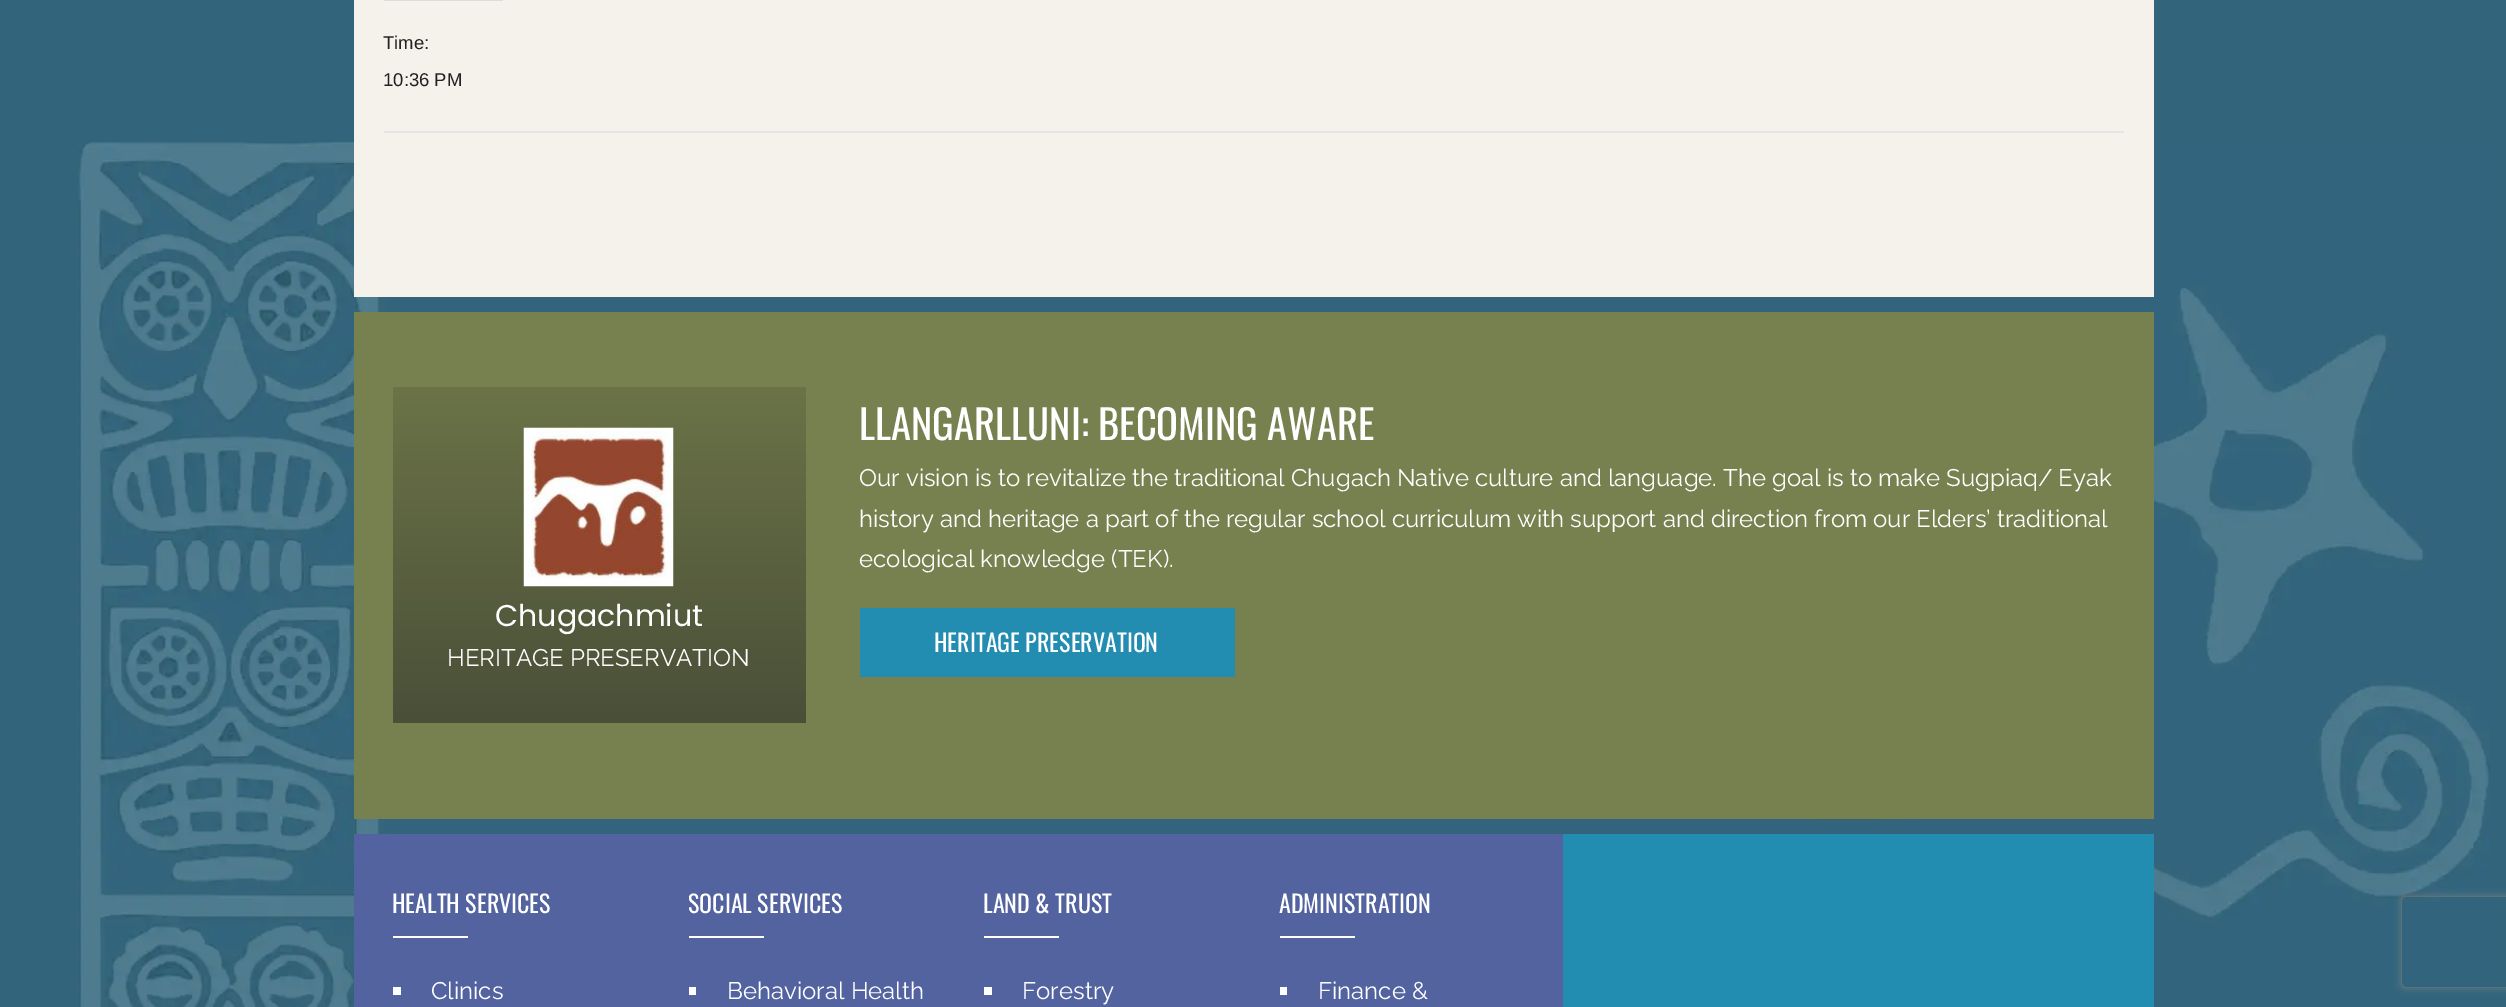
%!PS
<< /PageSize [2506 1007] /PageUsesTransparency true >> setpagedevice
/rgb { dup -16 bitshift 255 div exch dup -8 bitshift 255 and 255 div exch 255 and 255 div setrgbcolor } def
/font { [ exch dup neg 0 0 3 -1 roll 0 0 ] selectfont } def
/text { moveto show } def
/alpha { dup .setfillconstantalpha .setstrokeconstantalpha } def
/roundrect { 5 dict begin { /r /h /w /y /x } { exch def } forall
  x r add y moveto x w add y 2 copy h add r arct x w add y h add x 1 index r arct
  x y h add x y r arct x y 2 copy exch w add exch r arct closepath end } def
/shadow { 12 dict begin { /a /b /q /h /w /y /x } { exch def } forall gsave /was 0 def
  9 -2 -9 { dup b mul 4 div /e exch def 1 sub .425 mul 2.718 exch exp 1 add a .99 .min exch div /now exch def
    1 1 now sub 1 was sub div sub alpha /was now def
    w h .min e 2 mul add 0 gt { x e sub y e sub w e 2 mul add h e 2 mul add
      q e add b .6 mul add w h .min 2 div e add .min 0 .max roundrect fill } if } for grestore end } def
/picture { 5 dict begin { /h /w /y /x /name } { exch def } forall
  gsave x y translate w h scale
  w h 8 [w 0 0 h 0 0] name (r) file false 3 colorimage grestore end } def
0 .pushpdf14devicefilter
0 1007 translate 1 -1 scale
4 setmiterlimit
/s1 { /LiberationSans-Regular 18.5 font 16#222222 rgb } def
/s2 { /Poppins-Regular 30 font 16#FFFFFF rgb } def
/s3 { /Raleway-Regular 24 font 16#FFFFFF rgb } def
/s4 { /Oswald-Regular 40.5 font 16#FFFFFF rgb } def
/s5 { /Oswald-Regular 24 font 16#FFFFFF rgb } def
16#32657C rgb
0 0 2506 1007 rectfill
(pic1.raw) 77 142 2413 865 picture
16#F5F1EB rgb
354 0 1800 297 rectfill
16#DDDDDD rgb
384 0 119 1 rectfill
s1
(Time:) 383 49 text
(10:36 PM) 383 86 text
16#E4E4E4 rgb
384 131 1740 2 rectfill
16#77804F rgb
354 312 1800 507 rectfill
gsave 393 387 moveto 806 387 lineto 806 723 lineto 393 723 lineto closepath clip newpath
<< /ShadingType 2 /ColorSpace /DeviceRGB /Coords [599 387 599 723] /Extend [true true] /Function << /FunctionType 2 /Domain [0 1] /C0 [0.42 0.451 0.278] /C1 [0.29 0.31 0.22] /N 1 >> >> shfill grestore
(pic2.raw) 523 427 151 160 picture
s2
(Chugachmiut) 495 626 text
s3
(HERITAGE PRESERVATION) 447 666 text
s4
(LLANGARLLUNI: BECOMING AWARE) 859 440 text
s3
(Our vision is to revitalize the traditional Chugach Native culture and language. The goal is to make Sugpiaq/ Eyak) 859 486 text
(history and heritage a part of the regular school curriculum with support and direction from our Elders’ traditional) 859 527 text
(ecological knowledge \(TEK\).) 859 567 text
16#228DB1 rgb
860 608 375 69 rectfill
s5
(HERITAGE PRESERVATION) 934 652 text
16#5263A0 rgb
354 834 1209 173 rectfill
s5
(HEALTH SERVICES) 392 913 text
393 936 75 2 rectfill
393 987 8 8 rectfill
s3
(Clinics) 431 999 text
s5
(SOCIAL SERVICES) 688 913 text
689 936 75 2 rectfill
689 987 7 8 rectfill
s3
(Behavioral Health) 727 999 text
s5
(LAND & TRUST) 983 913 text
984 936 75 2 rectfill
984 987 8 8 rectfill
s3
(Forestry) 1022 999 text
s5
(ADMINISTRATION) 1279 913 text
1280 936 75 2 rectfill
1280 987 7 8 rectfill
s3
(Finance &) 1318 999 text
16#228DB1 rgb
1563 834 591 173 rectfill
gsave
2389 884 moveto 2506 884 lineto 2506 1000 lineto 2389 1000 lineto closepath 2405 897 moveto 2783 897 lineto 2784.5 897 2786 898.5 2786 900 curveto 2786 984 lineto 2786 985.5 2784.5 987 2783 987 curveto 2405 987 lineto 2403.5 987 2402 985.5 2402 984 curveto 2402 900 lineto 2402 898.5 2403.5 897 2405 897 curveto closepath eoclip newpath
16#808080 rgb
2402 897 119 90 3 4 1 shadow
grestore
.poppdf14devicefilter showpage
